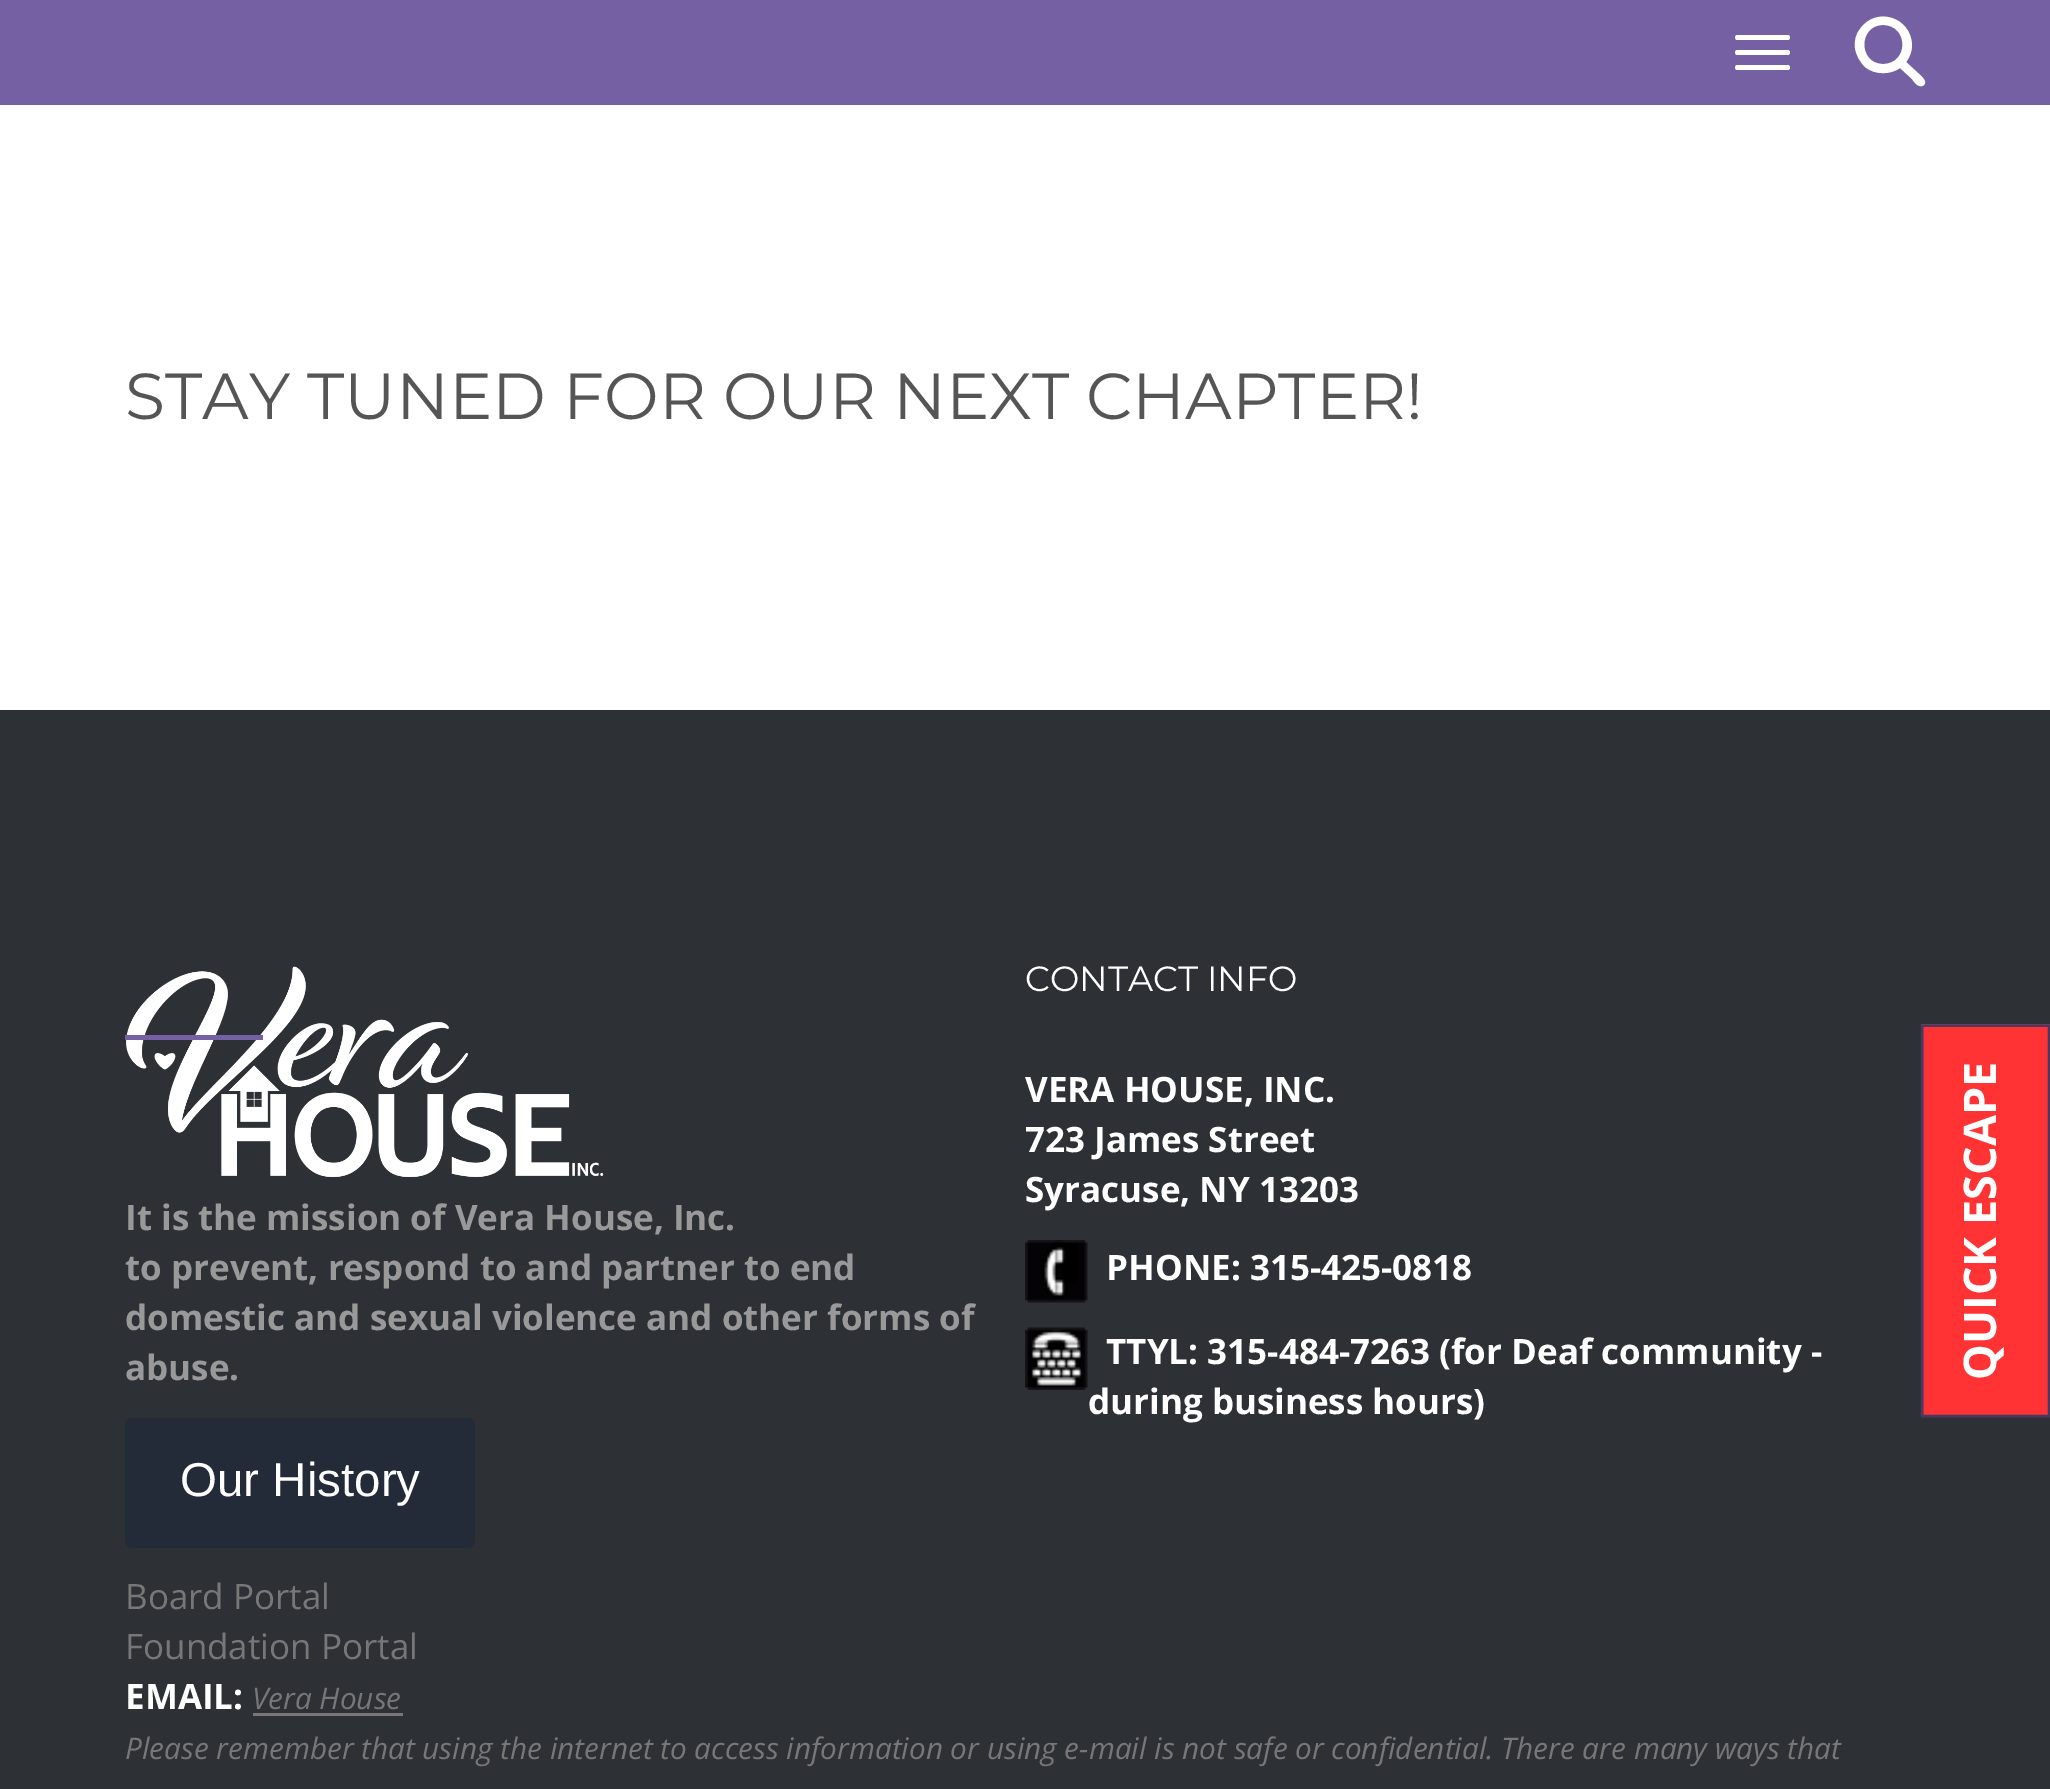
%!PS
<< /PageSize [2050 1789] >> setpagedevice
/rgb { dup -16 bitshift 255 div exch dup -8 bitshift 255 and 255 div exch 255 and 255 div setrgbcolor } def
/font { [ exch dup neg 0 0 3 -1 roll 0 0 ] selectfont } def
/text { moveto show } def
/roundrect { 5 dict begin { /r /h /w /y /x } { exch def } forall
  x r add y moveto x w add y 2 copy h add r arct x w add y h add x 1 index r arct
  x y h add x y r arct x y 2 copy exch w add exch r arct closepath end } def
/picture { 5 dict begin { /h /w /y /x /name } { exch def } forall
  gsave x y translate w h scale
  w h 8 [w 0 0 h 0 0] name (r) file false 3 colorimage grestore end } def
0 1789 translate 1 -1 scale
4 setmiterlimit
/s1 { /Montserrat-Regular 65 font 16#555555 rgb } def
/s2 { /Montserrat-Regular 35 font 16#FFFFFF rgb } def
/s3 { /OpenSans-Bold 35 font 16#FFFFFF rgb } def
/s4 { /OpenSans-Italic 29.75 font 16#777777 rgb } def
/s5 { /OpenSans-Bold 35 font 16#999999 rgb } def
/s6 { /LiberationSans-Regular 47.5 font 16#FFFFFF rgb } def
/s7 { /OpenSans-Regular 35 font 16#777777 rgb } def
16#FFFFFF rgb
0 0 2050 1789 rectfill
16#7460A2 rgb
0 0 2050 105 rectfill
16#FFFFFF rgb
1735 35 55 5 2.5 roundrect fill
1735 50 55 5 2.5 roundrect fill
1735 65 55 5 2.5 roundrect fill
1912 45 moveto 1912 51 1910 57 1906 62 curveto 1918 73 lineto 1920 75 1928 81 1924 85 curveto 1919 89 1914 82 1912 79 curveto 1900 68 lineto 1890 75 1875 75 1865 67 curveto 1860 62 1856 55 1855 48 curveto 1854 41 1856 34 1860 29 curveto 1876 6 1911 17 1912 45 curveto closepath 1883 64 moveto 1909 64 1909 25 1883 25 curveto 1858 25 1858 64 1883 64 curveto closepath fill
s1
(STAY TUNED FOR OUR NEXT CHAPTER!) 125 419 text
16#2D3034 rgb
0 710 2050 1079 rectfill
s2
(CONTACT INFO) 1025 991 text
(pic3.raw) 126 966 478 211 picture
16#7460A2 rgb
125 1035 138 5 rectfill
s3
(VERA HOUSE, INC.) 1025 1102 text
(723 James Street) 1025 1152 text
(Syracuse, NY 13203) 1025 1202 text
(pic1.raw) 1025 1240 63 63 picture
(PHONE: 315-425-0818) 1106 1280 text
(pic2.raw) 1025 1327 63 63 picture
(TTYL: 315-484-7263 \(for Deaf community -) 1106 1364 text
(during business hours\)) 1088 1414 text
(EMAIL:) 125 1709 text
s4
(Vera House) 252 1709 text
253 1713 150 3 rectfill
(Please remember that using the internet to access information or using e-mail is not safe or confidential. There are many ways that) 125 1759 text
s5
(It is the mission of Vera House, Inc.) 125 1230 text
(to prevent, respond to and partner to end) 125 1280 text
(domestic and sexual violence and other forms of) 125 1330 text
(abuse.) 125 1380 text
16#232A38 rgb
125 1418 350 130 8 roundrect fill
s6
(Our History) 180 1496 text
s7
(Board Portal) 125 1609 text
(Foundation Portal) 125 1659 text
16#FF3333 rgb
1921 1024 129 391 rectfill
16#463A62 rgb
2.5 setlinewidth
1922 1416 moveto 1922 1025.5 lineto 2049 1025.5 lineto 2049 1416 lineto closepath stroke
/OpenSans-Bold 45 font
16#FFFFFF rgb
gsave 1996 1380 translate -90 rotate 0 0 moveto (QUICK ESCAPE) show grestore
showpage
